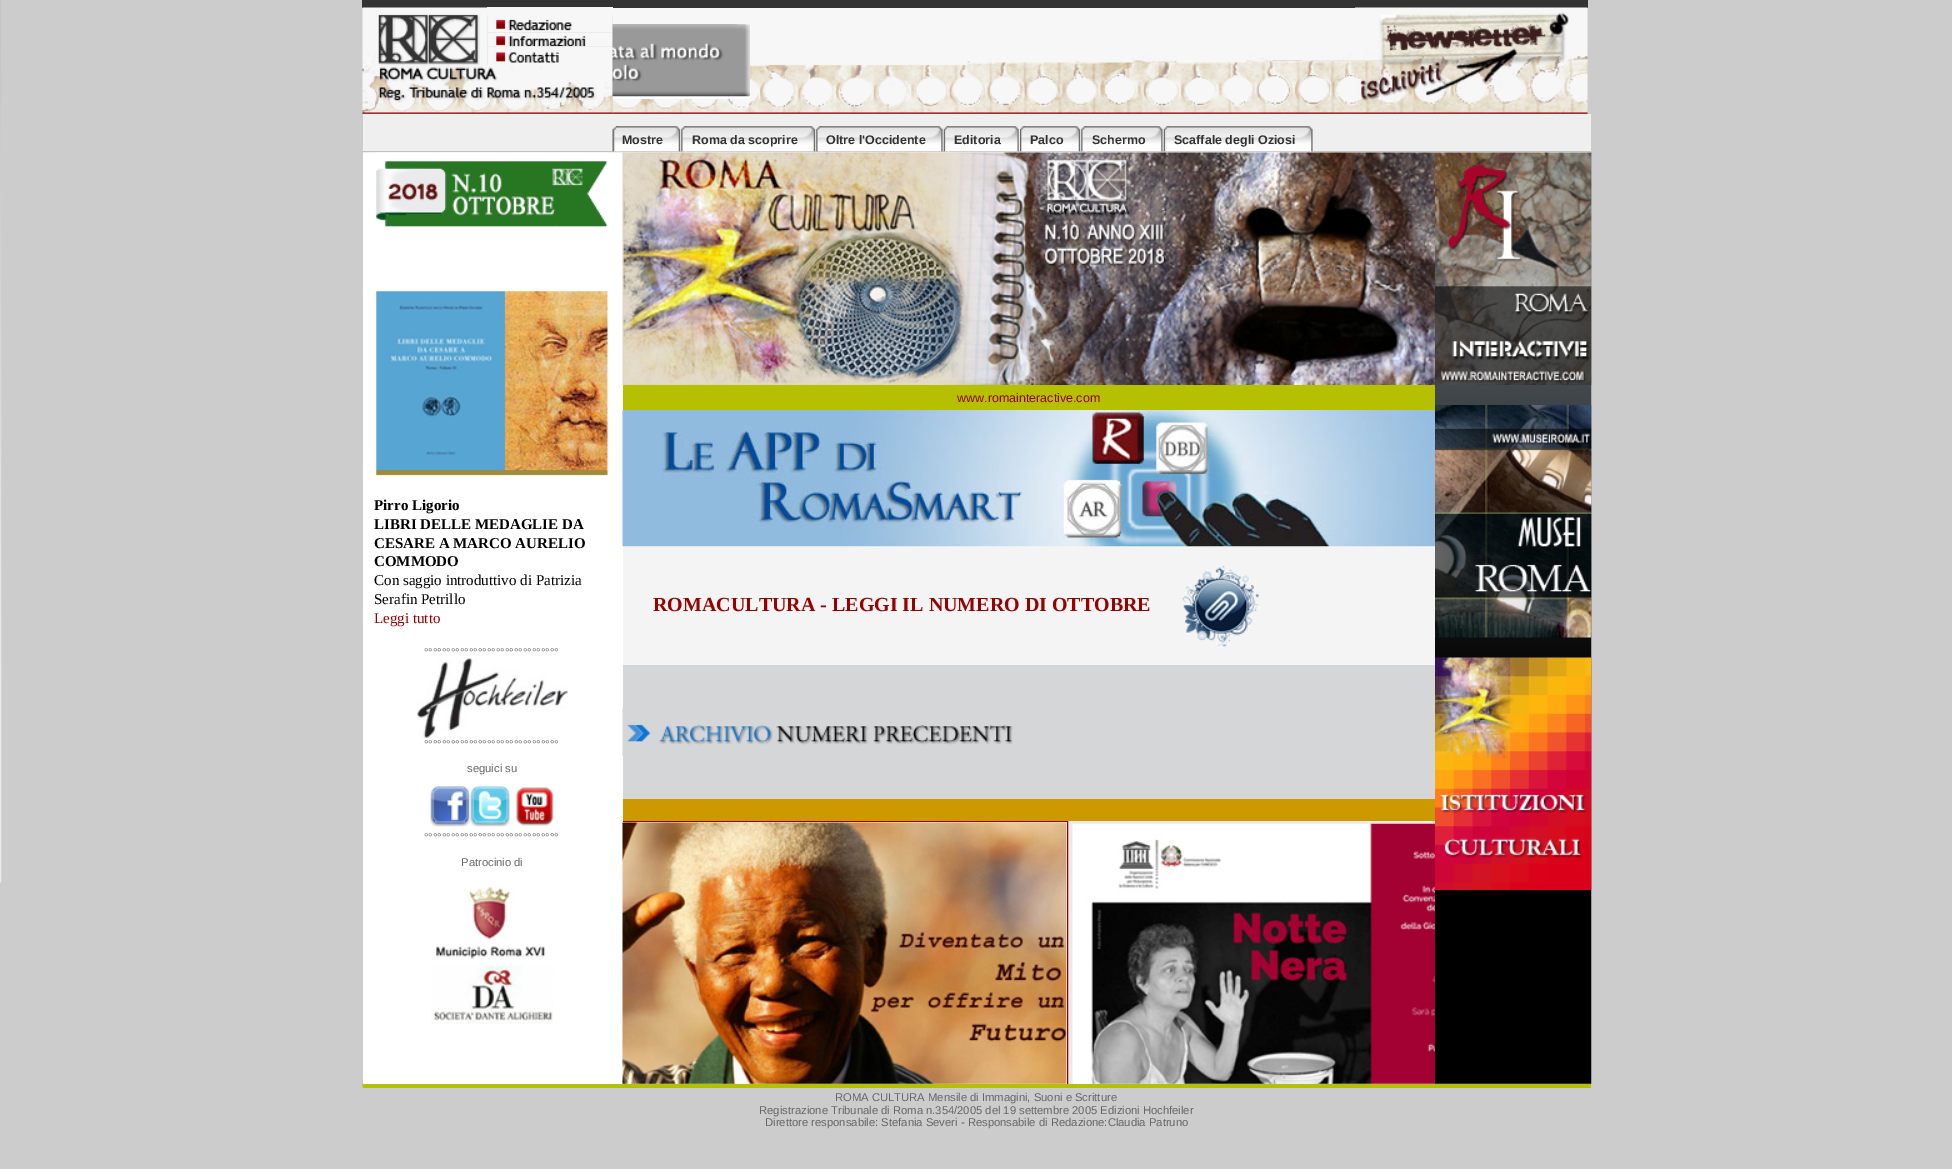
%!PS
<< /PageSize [1952 1169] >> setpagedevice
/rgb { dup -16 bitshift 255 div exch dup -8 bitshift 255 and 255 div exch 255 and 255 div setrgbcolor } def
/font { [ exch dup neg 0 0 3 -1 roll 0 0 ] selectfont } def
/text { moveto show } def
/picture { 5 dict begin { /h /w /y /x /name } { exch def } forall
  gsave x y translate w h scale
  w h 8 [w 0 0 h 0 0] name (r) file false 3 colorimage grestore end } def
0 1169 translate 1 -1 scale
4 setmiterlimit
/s1 { /LiberationSans-Bold 12.5 font 16#333333 rgb } def
/s2 { /LiberationSerif-Bold 15 font 16#000000 rgb } def
/s3 { /LiberationSerif-Regular 15 font 16#000000 rgb } def
/s4 { /LiberationSerif-Regular 15 font 16#990000 rgb } def
/s5 { /LiberationSans-Regular 11.25 font 16#666666 rgb } def
/s6 { /LiberationSans-Regular 12.5 font 16#990000 rgb } def
/s7 { /LiberationSerif-Bold 20 font 16#990000 rgb } def
16#CCCCCC rgb
0 0 1952 1169 rectfill
(pic1.raw) 0 0 2 883 picture
16#333333 rgb
362 0 1226 8 rectfill
(pic2.raw) 362 7 126 58 picture
(pic3.raw) 612 8 743 106 picture
16#F7F7F7 rgb
487 7 126 8 rectfill
16#FFFFFF rgb
613 24 137 75 rectfill
(pic6.raw) 487 15 126 18 picture
(pic7.raw) 487 32 126 15 picture
(pic8.raw) 487 46 126 19 picture
(pic9.raw) 362 65 251 49 picture
(pic4.raw) 612 24 138 73 picture
(pic5.raw) 1355 7 233 107 picture
(pic35.raw) 1435 152 157 932 picture
16#EFEFEF rgb
363 114 1228 39 rectfill
16#C1C1C1 rgb
363 151 1228 1 rectfill
(pic10.raw) 612 126 7 26 picture
(pic11.raw) 616 126 65 26 picture
s1
(Mostre) 622 144 text
(pic12.raw) 681 126 6 26 picture
(pic13.raw) 685 126 131 26 picture
(Roma da scoprire) 692 144 text
(pic12.raw) 816 126 6 26 picture
(pic14.raw) 820 126 123 26 picture
(Oltre l'Occidente) 826 144 text
(pic15.raw) 943 126 6 26 picture
(pic16.raw) 947 126 72 26 picture
(Editoria) 954 144 text
(pic17.raw) 1020 126 5 26 picture
(pic18.raw) 1023 126 58 26 picture
(Palco) 1030 144 text
(pic12.raw) 1081 126 6 26 picture
(pic19.raw) 1085 126 78 26 picture
(Schermo) 1092 144 text
(pic15.raw) 1163 126 6 26 picture
(pic20.raw) 1167 126 146 26 picture
(Scaffale degli Oziosi) 1174 144 text
16#FFFFFF rgb
363 153 260 931 rectfill
(pic21.raw) 376 152 232 75 picture
(pic22.raw) 376 291 232 185 picture
s2
(Pirro Ligorio) 374 510 text
(LIBRI DELLE MEDAGLIE DA) 374 529 text
(CESARE A MARCO AURELIO) 374 548 text
(COMMODO) 374 566 text
s3
(Con saggio introduttivo di Patrizia) 374 585 text
(Serafin Petrillo) 374 604 text
s4
(Leggi tutto) 374 623 text
s5
(°°°°°°°°°°°°°°°°°°°°°°°°°°°°°°) 424 656 text
(pic23.raw) 417 658 151 80 picture
(°°°°°°°°°°°°°°°°°°°°°°°°°°°°°°) 424 748 text
(seguici su) 467 772 text
(pic24.raw) 430 786 40 41 picture
(pic25.raw) 470 786 40 41 picture
(pic26.raw) 516 787 38 39 picture
(°°°°°°°°°°°°°°°°°°°°°°°°°°°°°°) 424 841 text
(Patrocinio di) 461 866 text
(pic27.raw) 436 886 110 73 picture
(pic28.raw) 431 963 122 61 picture
(pic29.raw) 622 152 813 233 picture
16#B5C100 rgb
623 385 812 25 rectfill
s6
(www.romainteractive.com) 957 402 text
16#F4F4F4 rgb
623 546 812 119 rectfill
(pic30.raw) 622 410 813 137 picture
s7
(ROMACULTURA - LEGGI IL NUMERO DI OTTOBRE) 653 611 text
(pic31.raw) 1182 566 78 81 picture
16#D5D6D7 rgb
623 665 812 134 rectfill
(pic32.raw) 622 707 391 50 picture
16#CC9900 rgb
623 799 812 22 rectfill
16#EAEAEA rgb
623 821 812 263 rectfill
16#B5C100 rgb
363 1084 1228 4 rectfill
gsave
623 821 812 263 rectclip
16#990000 rgb
599.5 821.5 468 264 rectstroke
grestore
(pic33.raw) 622 822 445 262 picture
(pic34.raw) 1072 823 363 261 picture
(pic36.raw) 1435 152 157 233 picture
(pic37.raw) 1435 405 157 233 picture
(pic38.raw) 1435 657 157 233 picture
(pic39.raw) 362 1083 2 5 picture
s5
(ROMA CULTURA Mensile di Immagini, Suoni e Scritture) 835 1101 text
(Registrazione Tribunale di Roma n.354/2005 del 19 settembre 2005 Edizioni Hochfeiler) 759 1114 text
(Direttore responsabile: Stefania Severi - Responsabile di Redazione:Claudia Patruno) 765 1126 text
showpage
